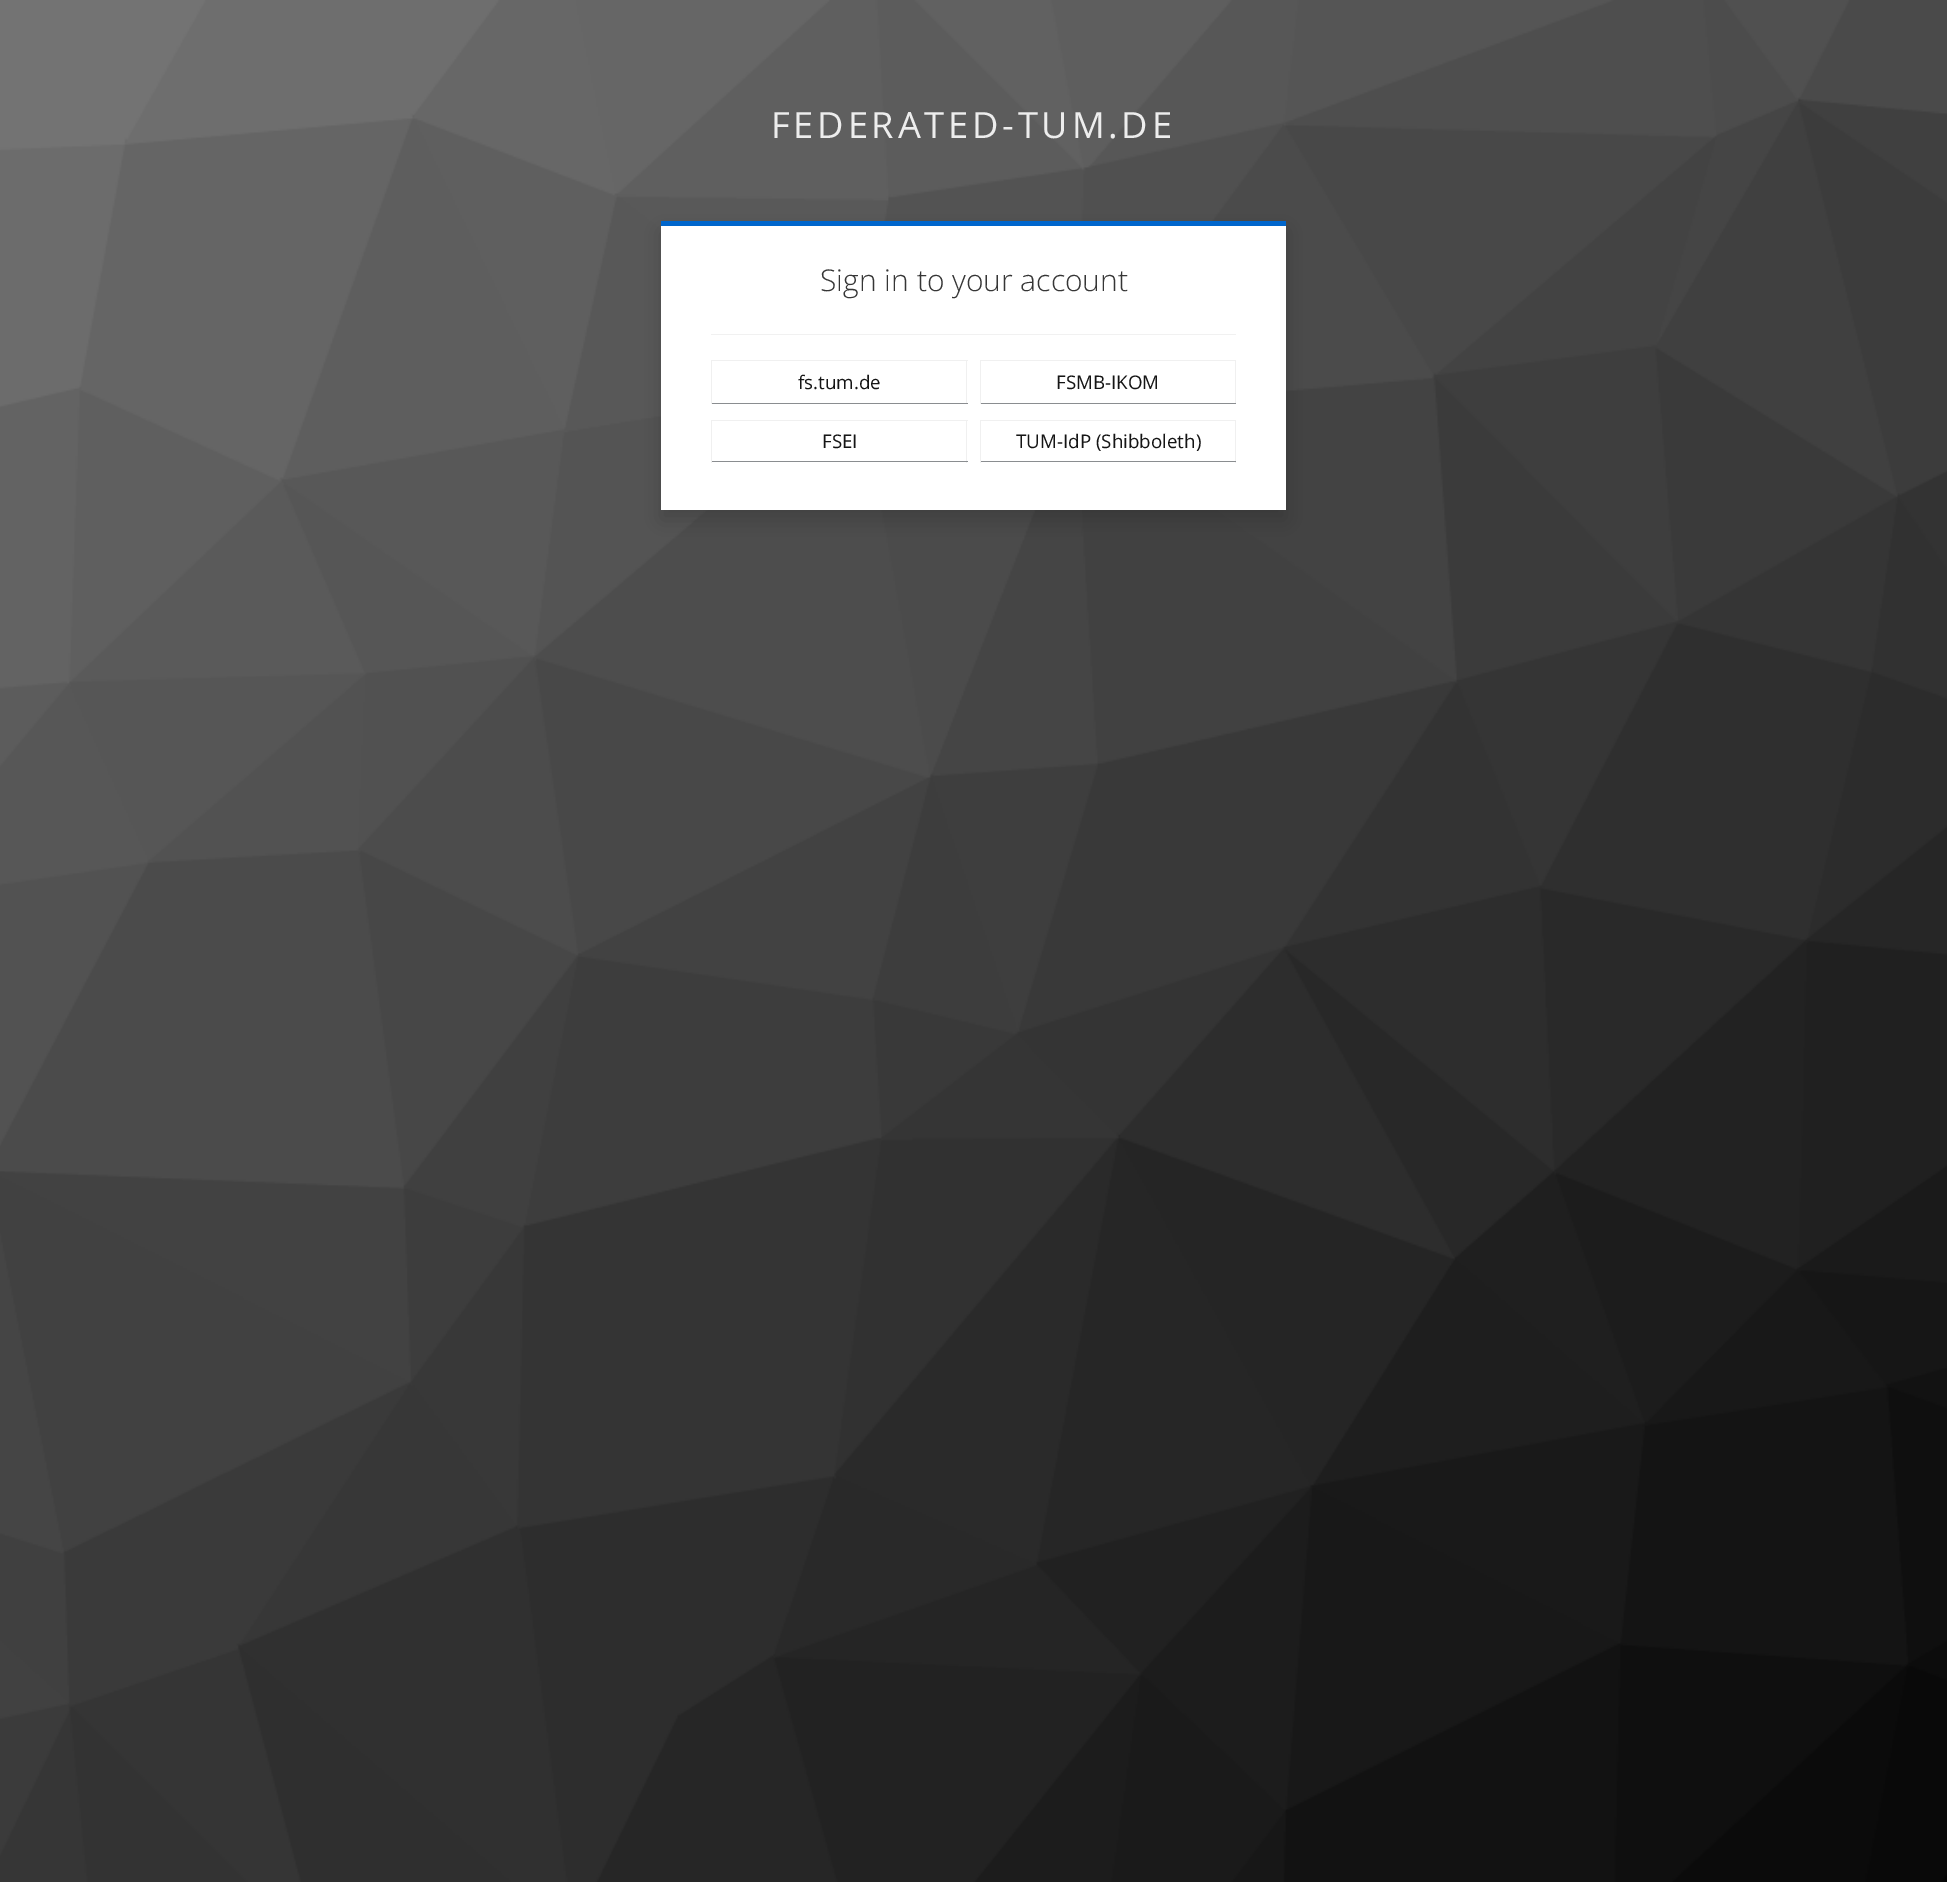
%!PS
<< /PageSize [1947 1882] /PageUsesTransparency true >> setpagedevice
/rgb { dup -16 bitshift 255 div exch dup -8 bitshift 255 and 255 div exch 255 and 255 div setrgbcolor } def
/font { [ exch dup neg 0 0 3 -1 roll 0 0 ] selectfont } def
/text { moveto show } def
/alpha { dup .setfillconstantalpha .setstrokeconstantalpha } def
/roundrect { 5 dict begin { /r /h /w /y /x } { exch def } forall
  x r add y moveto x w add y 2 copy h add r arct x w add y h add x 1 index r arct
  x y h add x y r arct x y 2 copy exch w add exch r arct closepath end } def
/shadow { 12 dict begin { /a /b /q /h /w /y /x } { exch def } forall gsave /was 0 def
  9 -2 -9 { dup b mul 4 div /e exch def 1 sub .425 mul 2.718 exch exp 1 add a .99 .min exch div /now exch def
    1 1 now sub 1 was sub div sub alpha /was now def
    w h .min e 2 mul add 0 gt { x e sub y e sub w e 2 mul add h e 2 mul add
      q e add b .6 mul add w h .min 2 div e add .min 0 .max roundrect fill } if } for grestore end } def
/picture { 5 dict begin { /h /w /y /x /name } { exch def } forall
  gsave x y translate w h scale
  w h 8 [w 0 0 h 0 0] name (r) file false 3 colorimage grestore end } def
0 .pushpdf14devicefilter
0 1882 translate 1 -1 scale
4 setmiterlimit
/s1 { /OpenSans-Light 30 font 16#363636 rgb } def
/s2 { /OpenSans-Regular 18.75 font 16#151515 rgb } def
16#FFFFFF rgb
0 0 1947 1882 rectfill
(pic1.raw) 0 0 1947 1882 picture
/OpenSans-Regular 36.25 font
16#EDEDED rgb
771 138 moveto 3.75 0 (FEDERATED-TUM.DE) ashow
16#030303 rgb
661 231 625 289 0 10 0.16 shadow
16#FFFFFF rgb
661 226 625 284 rectfill
16#0066CC rgb
661 221 625 5 rectfill
s1
(Sign in to your account) 820 291 text
16#F1F1F1 rgb
711 334 525 1 rectfill
16#F0F0F0 rgb
711 360 257 1 rectfill
966 360 1 44 rectfill
16#8A8D90 rgb
711 403 257 1 rectfill
16#F0F0F0 rgb
711 360 1 44 rectfill
s2
(fs.tum.de) 798 389 text
16#F0F0F0 rgb
980 360 256 1 rectfill
1235 360 1 44 rectfill
16#8A8D90 rgb
980 403 256 1 rectfill
16#F0F0F0 rgb
980 360 1 44 rectfill
s2
(FSMB-IKOM) 1056 389 text
16#F0F0F0 rgb
711 420 257 1 rectfill
966 420 1 43 rectfill
16#8A8D90 rgb
711 461 257 1 rectfill
16#F0F0F0 rgb
711 420 1 43 rectfill
s2
(FSEI) 822 448 text
16#F0F0F0 rgb
980 420 256 1 rectfill
1235 420 1 43 rectfill
16#8A8D90 rgb
980 461 256 1 rectfill
16#F0F0F0 rgb
980 420 1 43 rectfill
s2
(TUM-IdP \(Shibboleth\)) 1016 448 text
.poppdf14devicefilter showpage
